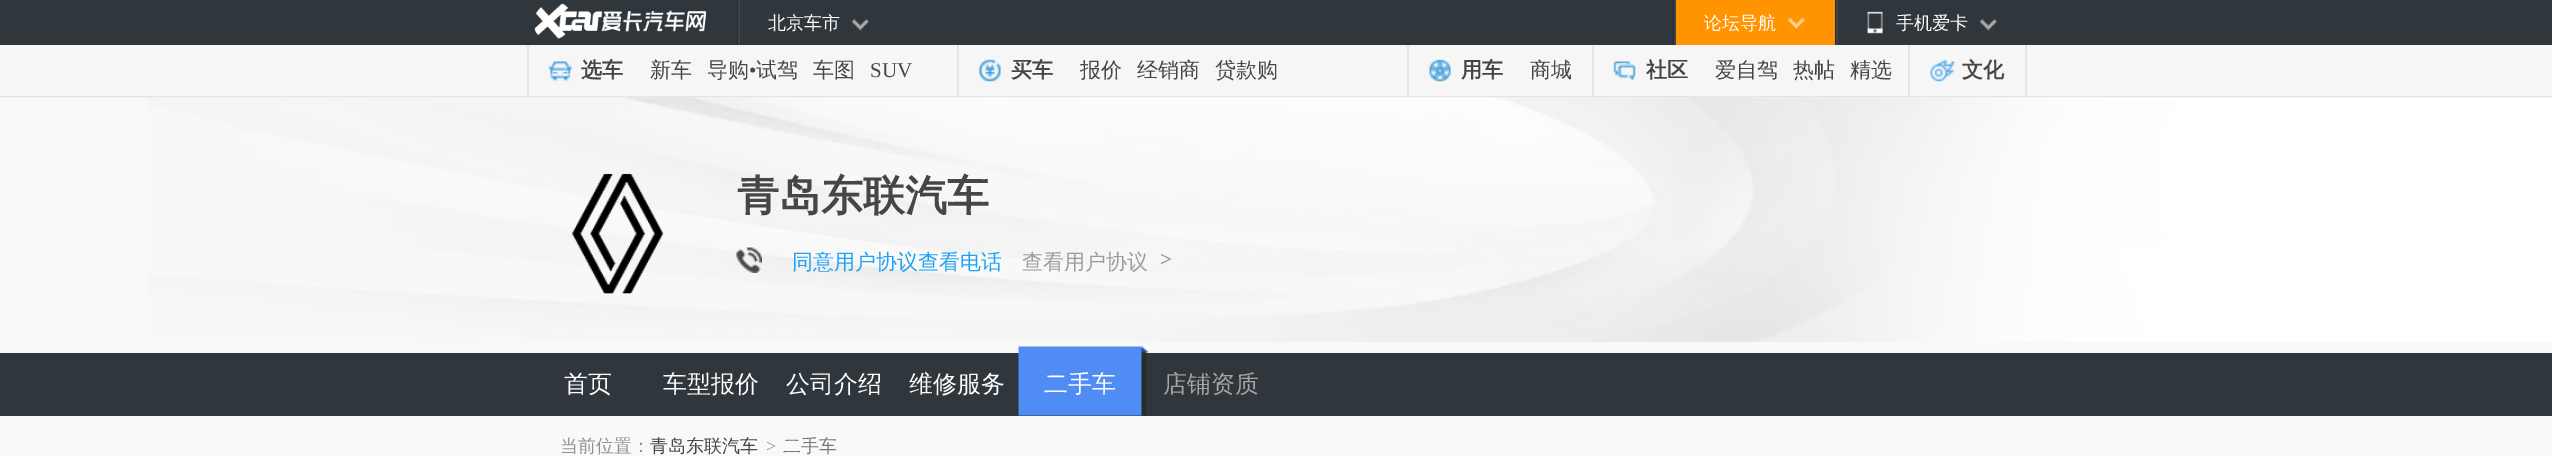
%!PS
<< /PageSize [2552 456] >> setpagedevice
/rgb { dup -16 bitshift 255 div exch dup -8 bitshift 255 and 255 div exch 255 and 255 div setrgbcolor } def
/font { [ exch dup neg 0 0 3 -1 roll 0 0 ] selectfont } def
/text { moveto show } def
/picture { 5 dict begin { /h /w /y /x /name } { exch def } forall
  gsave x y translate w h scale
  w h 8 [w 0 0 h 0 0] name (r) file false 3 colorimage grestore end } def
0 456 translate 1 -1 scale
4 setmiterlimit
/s1 { /WenQuanYiZenHei-Medium 18 font 16#FFFFFF rgb } def
/s2 { /WenQuanYiZenHei-Bold 21 font 16#464646 rgb } def
/s3 { /WenQuanYiZenHei-Medium 21 font 16#464646 rgb } def
/s4 { /LiberationSerif-Regular 21 font 16#464646 rgb } def
/s5 { /WenQuanYiZenHei-Bold 42 font 16#464646 rgb } def
/s6 { /WenQuanYiZenHei-Medium 21 font 16#1DA1F2 rgb } def
/s7 { /WenQuanYiZenHei-Medium 21 font 16#9B9B9B rgb } def
/s8 { /LiberationSerif-Bold 21 font 16#9B9B9B rgb } def
/s9 { /WenQuanYiZenHei-Medium 24 font 16#FFFFFF rgb } def
/s10 { /WenQuanYiZenHei-Medium 24 font 16#A7A4A4 rgb } def
/s11 { /WenQuanYiZenHei-Medium 18 font 16#919191 rgb } def
/s12 { /WenQuanYiZenHei-Medium 18 font 16#464646 rgb } def
/s13 { /LiberationSerif-Regular 18 font 16#919191 rgb } def
/s14 { /WenQuanYiZenHei-Medium 18 font 16#777777 rgb } def
16#F9F9F9 rgb
0 0 2552 456 rectfill
16#2F363C rgb
0 0 2552 45 rectfill
(pic1.raw) 534 3 173 36 picture
16#242B31 rgb
737 0 1 45 rectfill
(pic2.raw) 851 19 18 12 picture
16#3C4349 rgb
738 0 2 45 rectfill
s1
(北京车市) 768 29 text
16#242B31 rgb
1673 0 1 45 rectfill
16#FF9400 rgb
1676 0 159 45 rectfill
(pic3.raw) 1787 17 18 12 picture
16#3C4349 rgb
1674 0 2 45 rectfill
s1
(论坛导航) 1704 29 text
16#242B31 rgb
1835 0 1 45 rectfill
(pic4.raw) 1979 19 18 12 picture
16#3C4349 rgb
1836 0 2 45 rectfill
(pic5.raw) 1867 11 16 23 picture
s1
(手机爱卡) 1896 29 text
16#F6F6F6 rgb
0 45 2552 53 rectfill
(pic6.raw) 0 96 2552 2 picture
16#E5E5E5 rgb
527 45 2 51 rectfill
(pic7.raw) 548 61 24 21 picture
s2
(选车) 581 77 text
s3
(新车) 650 77 text
(导购) 707 77 text
s4
(•) 749 77 text
s3
(试驾) 756 77 text
(车图) 813 77 text
s4
(SUV) 870 77 text
16#E5E5E5 rgb
957 45 2 51 rectfill
(pic8.raw) 979 59 22 23 picture
s2
(买车) 1011 77 text
s3
(报价) 1080 77 text
(经销商) 1137 77 text
(贷款购) 1215 77 text
16#E5E5E5 rgb
1407 45 2 51 rectfill
(pic9.raw) 1429 59 22 23 picture
s2
(用车) 1461 77 text
s3
(商城) 1530 77 text
16#E5E5E5 rgb
1592 45 2 51 rectfill
(pic10.raw) 1613 61 23 19 picture
s2
(社区) 1646 77 text
s3
(爱自驾) 1715 77 text
(热帖) 1793 77 text
(精选) 1850 77 text
16#E5E5E5 rgb
1908 45 2 51 rectfill
2025 45 2 51 rectfill
(pic11.raw) 1930 59 25 23 picture
s2
(文化) 1962 77 text
(pic12.raw) 148 97 2404 245 picture
(pic13.raw) 571 173 93 121 picture
s5
(青岛东联汽车) 737 210 text
(pic14.raw) 736 247 26 26 picture
s6
(同意用户协议查看电话) 792 269 text
s7
(查看用户协议) 1022 269 text
s8
(>) 1160 266 text
16#2F363C rgb
0 353 2552 63 rectfill
s9
(首页) 564 392 text
(车型报价) 663 392 text
(公司介绍) 786 392 text
(维修服务) 909 392 text
(pic15.raw) 1018 346 131 70 picture
(二手车) 1044 392 text
s10
(店铺资质) 1163 392 text
s11
(当前位置：) 560 452 text
s12
(青岛东联汽车) 650 452 text
s13
(>) 766 452 text
s14
(二手车) 783 452 text
showpage
